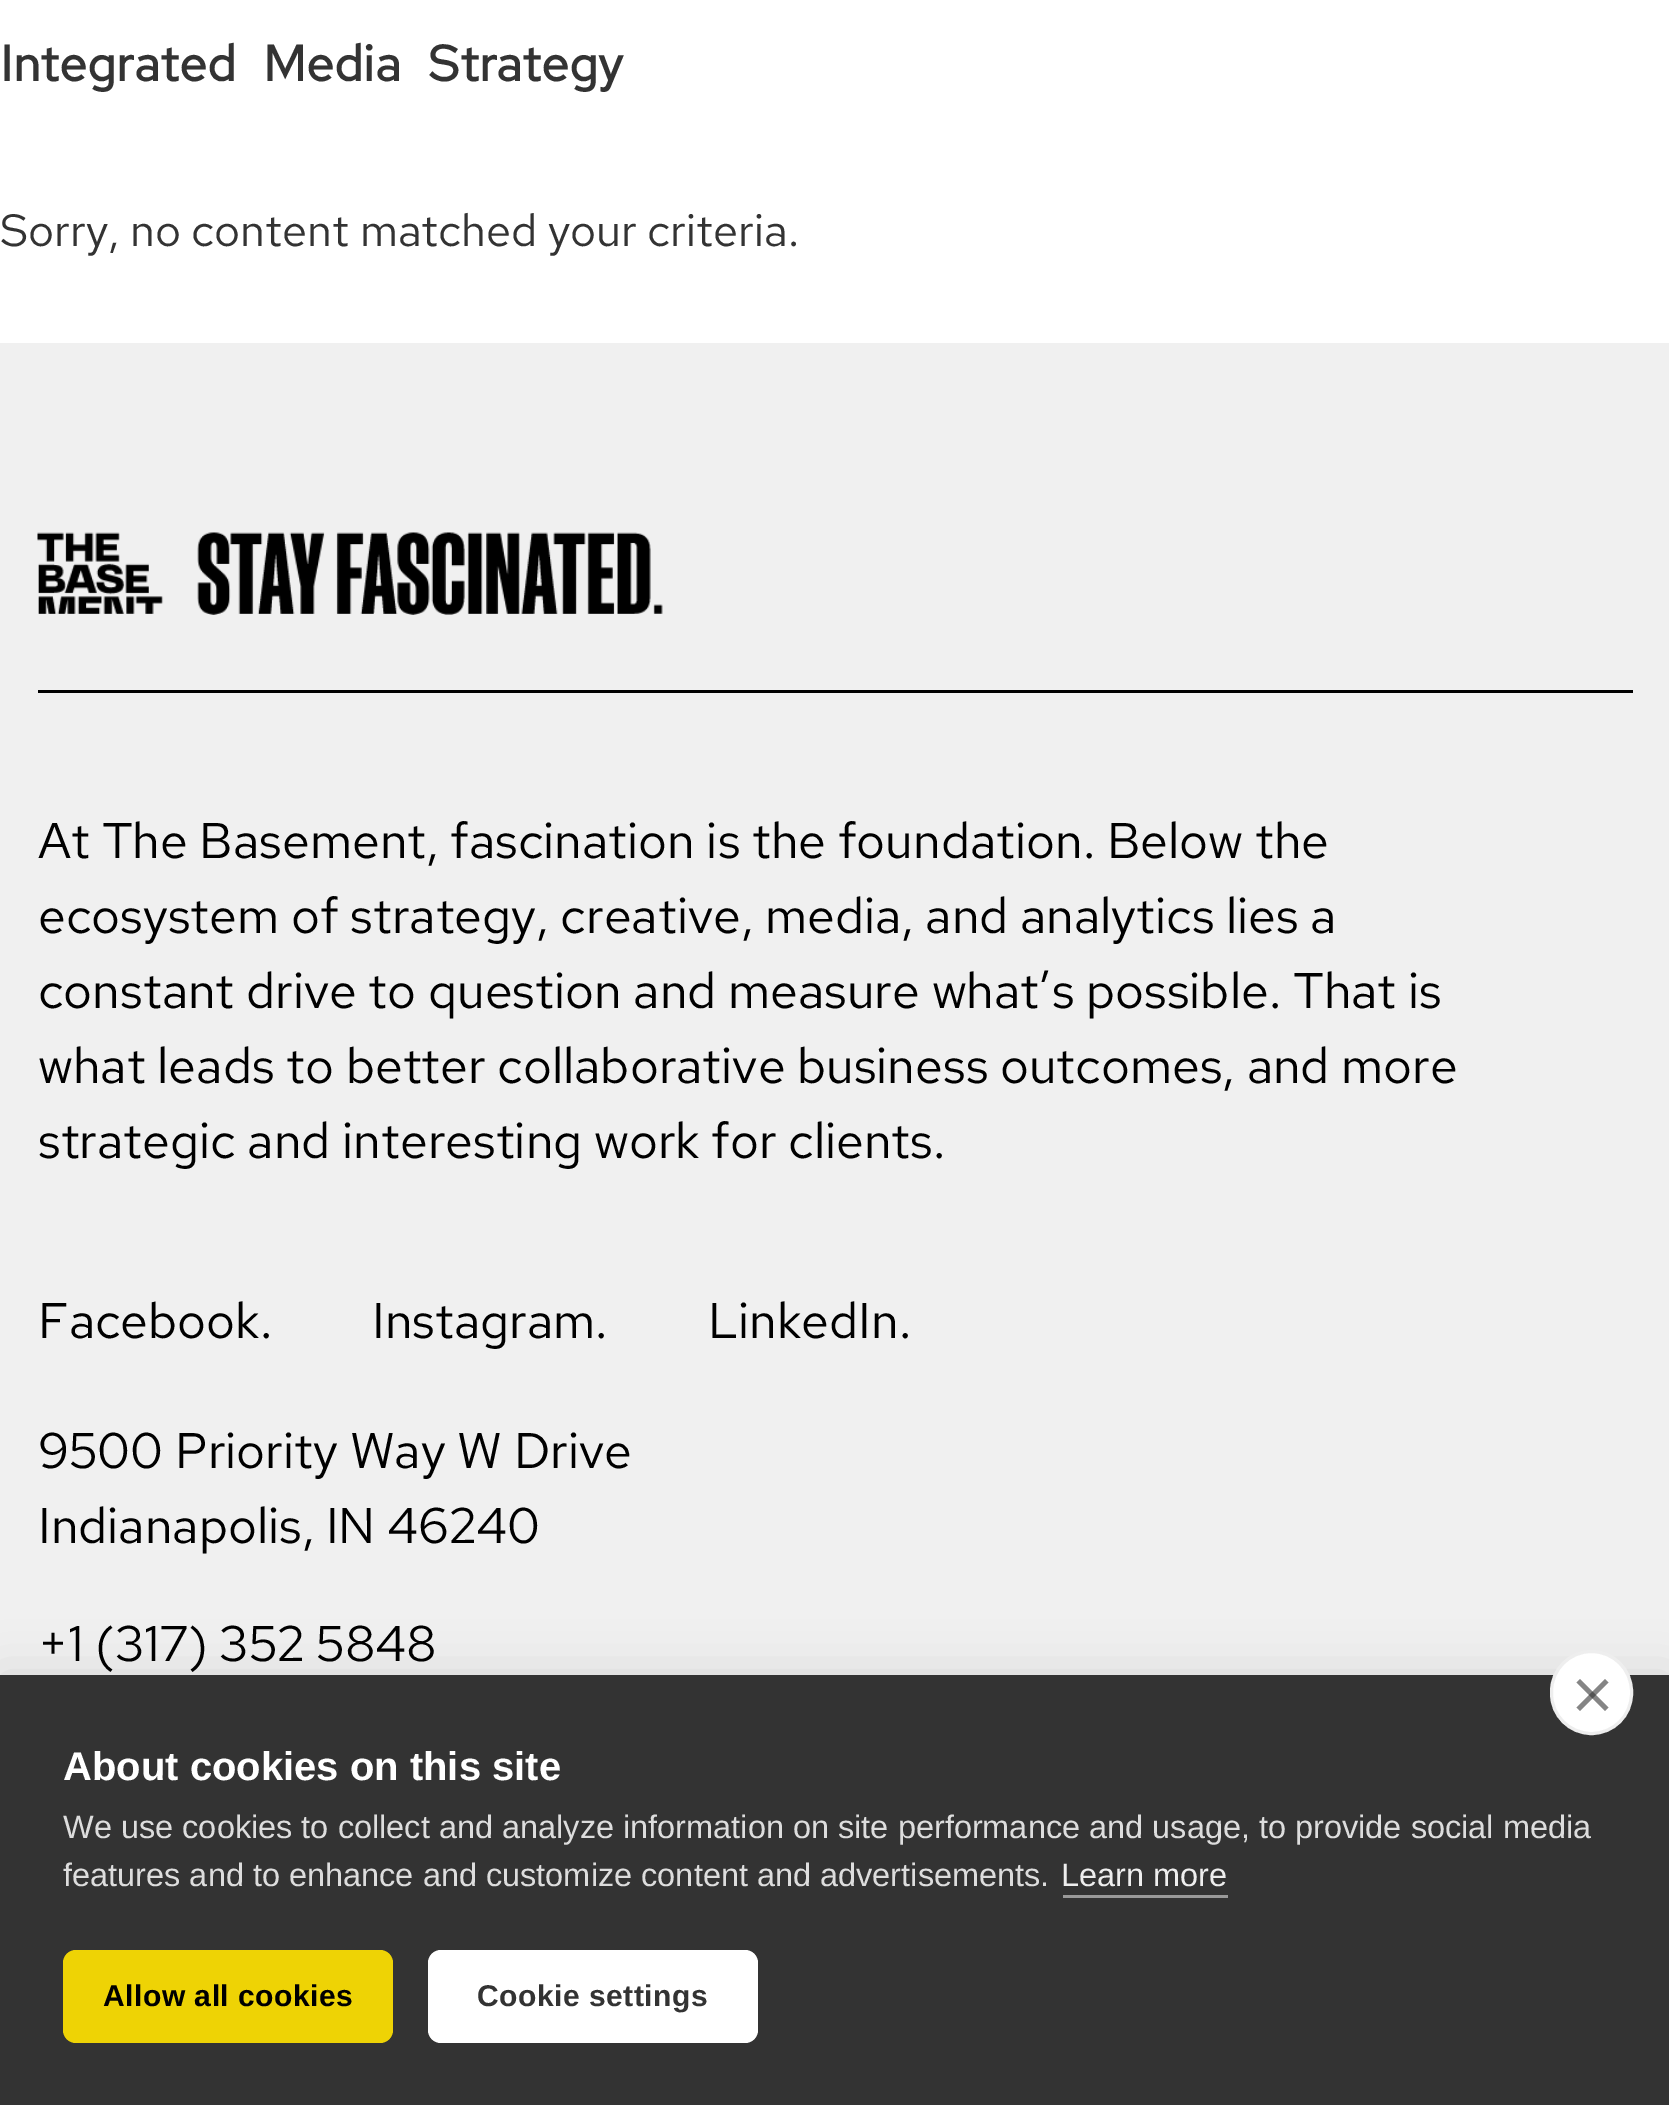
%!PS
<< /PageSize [1669 2105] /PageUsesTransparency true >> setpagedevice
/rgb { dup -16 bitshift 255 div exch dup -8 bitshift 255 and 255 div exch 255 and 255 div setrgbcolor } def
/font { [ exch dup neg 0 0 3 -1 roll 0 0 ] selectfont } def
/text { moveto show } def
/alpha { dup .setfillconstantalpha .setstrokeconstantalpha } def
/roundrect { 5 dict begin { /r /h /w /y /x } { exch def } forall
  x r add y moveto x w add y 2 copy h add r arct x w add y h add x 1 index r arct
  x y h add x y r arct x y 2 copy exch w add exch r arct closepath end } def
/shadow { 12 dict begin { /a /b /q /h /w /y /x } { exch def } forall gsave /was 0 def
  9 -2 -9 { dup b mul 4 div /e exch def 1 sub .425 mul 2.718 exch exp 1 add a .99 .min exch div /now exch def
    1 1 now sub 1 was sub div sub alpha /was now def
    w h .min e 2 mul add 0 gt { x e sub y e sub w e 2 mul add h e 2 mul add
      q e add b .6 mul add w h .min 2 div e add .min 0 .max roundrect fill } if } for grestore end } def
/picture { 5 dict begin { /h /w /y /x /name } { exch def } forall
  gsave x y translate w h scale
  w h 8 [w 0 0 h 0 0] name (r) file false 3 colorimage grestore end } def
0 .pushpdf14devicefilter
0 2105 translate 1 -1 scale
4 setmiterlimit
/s1 { /RedHatText-Regular 45 font 16#333333 rgb } def
/s2 { /RedHatText-Regular 50 font 16#000000 rgb } def
/s3 { /LiberationSans-Bold 40 font 16#FFFFFF rgb } def
/s4 { /LiberationSans-Regular 32.5 font 16#DDDDDD rgb } def
/s5 { /LiberationSans-Regular 32.5 font 16#EEEEEE rgb } def
16#FFFFFF rgb
0 0 1669 2105 rectfill
/RedHatText-Bold 50 font
16#333333 rgb
0 81 moveto 16 0 32 (Integrated Media Strategy) widthshow
s1
(Sorry, no content matched your criteria.) 0 246 text
16#F0F0F0 rgb
0 343 1669 1332 rectfill
16#000000 rgb
38 690 1595 3 rectfill
(pic1.raw) 37 532 626 83 picture
s2
(At The Basement, fascination is the foundation. Below the) 38 858 text
(ecosystem of strategy, creative, media, and analytics lies a) 38 933 text
(constant drive to question and measure what’s possible. That is) 38 1008 text
(what leads to better collaborative business outcomes, and more) 38 1083 text
(strategic and interesting work for clients.) 38 1158 text
(Facebook.) 38 1338 text
(Instagram.) 372 1338 text
(LinkedIn.) 708 1338 text
(9500 Priority Way W Drive) 38 1468 text
(Indianapolis, IN 46240) 38 1543 text
(+1 \(317\) 352 5848) 38 1661 text
0 1675 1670 430 0 25 0.1 shadow
16#333333 rgb
0 1675 1669 430 rectfill
16#FFFFFF rgb
1551.5 1651.5 80 82 40 roundrect gsave fill grestore
16#EEEEEE rgb
3 setlinewidth
stroke
16#858585 rgb
1576.5 1707.5 moveto 1605 1679 lineto 1608.5 1682.5 lineto 1580 1711 lineto closepath fill
0.6 alpha
16#333333 rgb
1580 1679 moveto 1608.5 1707.5 lineto 1605 1711 lineto 1576.5 1682.5 lineto closepath fill
1 alpha
s3
(About cookies on this site) 63 1780 text
s4
(We use cookies to collect and analyze information on site performance and usage, to provide social media) 63 1838 text
(features and to enhance and customize content and advertisements.) 63 1886 text
s5
(Learn more) 1061 1886 text
16#999999 rgb
1063 1895 165 3 rectfill
16#EED305 rgb
63 1950 330 93 13 roundrect fill
/LiberationSans-Bold 30 font
16#000000 rgb
103 2006 moveto 0.5 0 (Allow all cookies) ashow
16#FFFFFF rgb
428 1950 330 93 13 roundrect fill
16#333333 rgb
477 2006 moveto 0.5 0 (Cookie settings) ashow
.poppdf14devicefilter showpage
